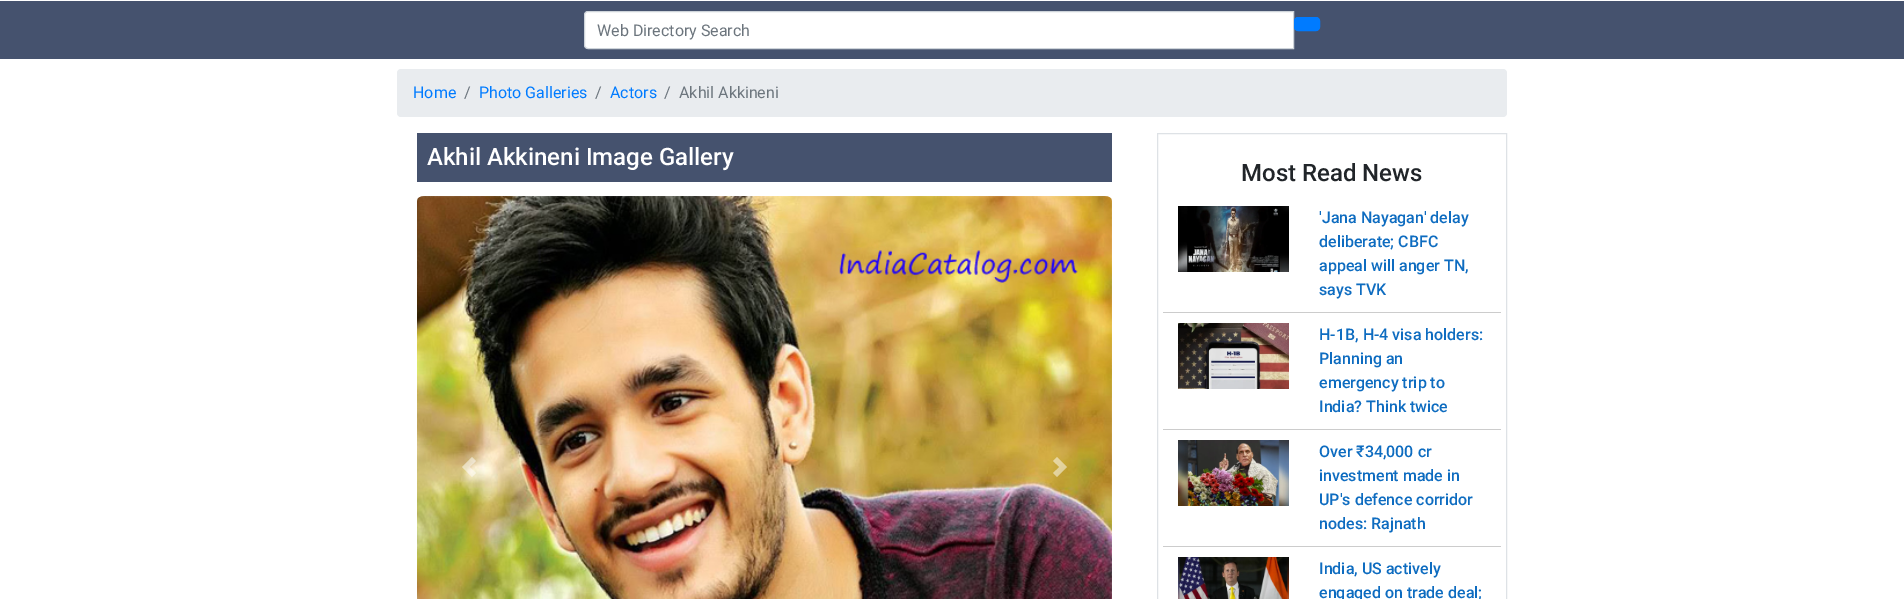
%!PS
<< /PageSize [1904 599] /PageUsesTransparency true >> setpagedevice
/rgb { dup -16 bitshift 255 div exch dup -8 bitshift 255 and 255 div exch 255 and 255 div setrgbcolor } def
/font { [ exch dup neg 0 0 3 -1 roll 0 0 ] selectfont } def
/text { moveto show } def
/alpha { dup .setfillconstantalpha .setstrokeconstantalpha } def
/roundrect { 5 dict begin { /r /h /w /y /x } { exch def } forall
  x r add y moveto x w add y 2 copy h add r arct x w add y h add x 1 index r arct
  x y h add x y r arct x y 2 copy exch w add exch r arct closepath end } def
/picture { 5 dict begin { /h /w /y /x /name } { exch def } forall
  gsave x y translate w h scale
  w h 8 [w 0 0 h 0 0] name (r) file false 3 colorimage grestore end } def
0 .pushpdf14devicefilter
0 599 translate 1 -1 scale
4 setmiterlimit
/s1 { /Roboto-Regular 16 font 16#6C757D rgb } def
/s2 { /Roboto-Regular 16 font 16#007BFF rgb } def
/s3 { /Roboto-Medium 24 font 16#FFFFFF rgb } def
/s4 { /Roboto-Medium 24 font 16#212529 rgb } def
/s5 { /Roboto-Medium 16 font 16#0E6CC0 rgb } def
16#FFFFFF rgb
0 0 1904 599 rectfill
16#45526E rgb
0 1 1904 58 rectfill
16#FFFFFF rgb
588 11.5 moveto 1293.5 11.5 lineto 1293.5 48.5 lineto 588 48.5 lineto 586 48.5 584.5 47 584.5 45 curveto 584.5 15 lineto 584.5 13 586 11.5 588 11.5 curveto closepath gsave fill grestore
16#CED4DA rgb
stroke
s1
(Web Directory Search) 597 36 text
16#007BFF rgb
1294.5 17.5 25 13 3.5 roundrect gsave fill grestore
stroke
16#E9ECEF rgb
397 69 1110 48 4 roundrect fill
s2
(Home) 413 98 text
s1
(/) 464 98 text
s2
(Photo Galleries) 479 98 text
s1
(/) 595 98 text
s2
(Actors) 610 98 text
s1
(/) 664 98 text
(Akhil Akkineni) 679 98 text
16#45526E rgb
417 133 695 49 rectfill
s3
(Akhil Akkineni Image Gallery) 427 165 text
(pic1.raw) 417 196 695 403 picture
0.5 alpha
472 457 moveto 462 467 lineto 472 477 lineto 476 473 lineto 469.5 467 lineto 476 461 lineto closepath fill
1057 457 moveto 1053 461 lineto 1059.5 467 lineto 1053 473 lineto 1057 477 lineto 1067 467 lineto closepath fill
1 alpha
16#DEE2E6 rgb
1157.5 133.5 349 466 rectstroke
s4
(Most Read News) 1241 181 text
(pic2.raw) 1178 206 111 66 picture
s5
('Jana Nayagan' delay) 1319 223 text
(deliberate; CBFC) 1319 247 text
(appeal will anger TN,) 1319 271 text
(says TVK) 1319 295 text
16#CCCCCC rgb
1163 312 338 1 rectfill
(pic3.raw) 1178 323 111 66 picture
s5
(H-1B, H-4 visa holders:) 1319 340 text
(Planning an) 1319 364 text
(emergency trip to) 1319 388 text
(India? Think twice) 1319 412 text
16#CCCCCC rgb
1163 429 338 1 rectfill
(pic4.raw) 1178 440 111 66 picture
s5
(Over ₹34,000 cr) 1319 457 text
(investment made in) 1319 481 text
(UP's defence corridor) 1319 505 text
(nodes: Rajnath) 1319 529 text
16#CCCCCC rgb
1163 546 338 1 rectfill
(pic5.raw) 1178 557 111 42 picture
s5
(India, US actively) 1319 574 text
(engaged on trade deal;) 1319 598 text
.poppdf14devicefilter showpage
